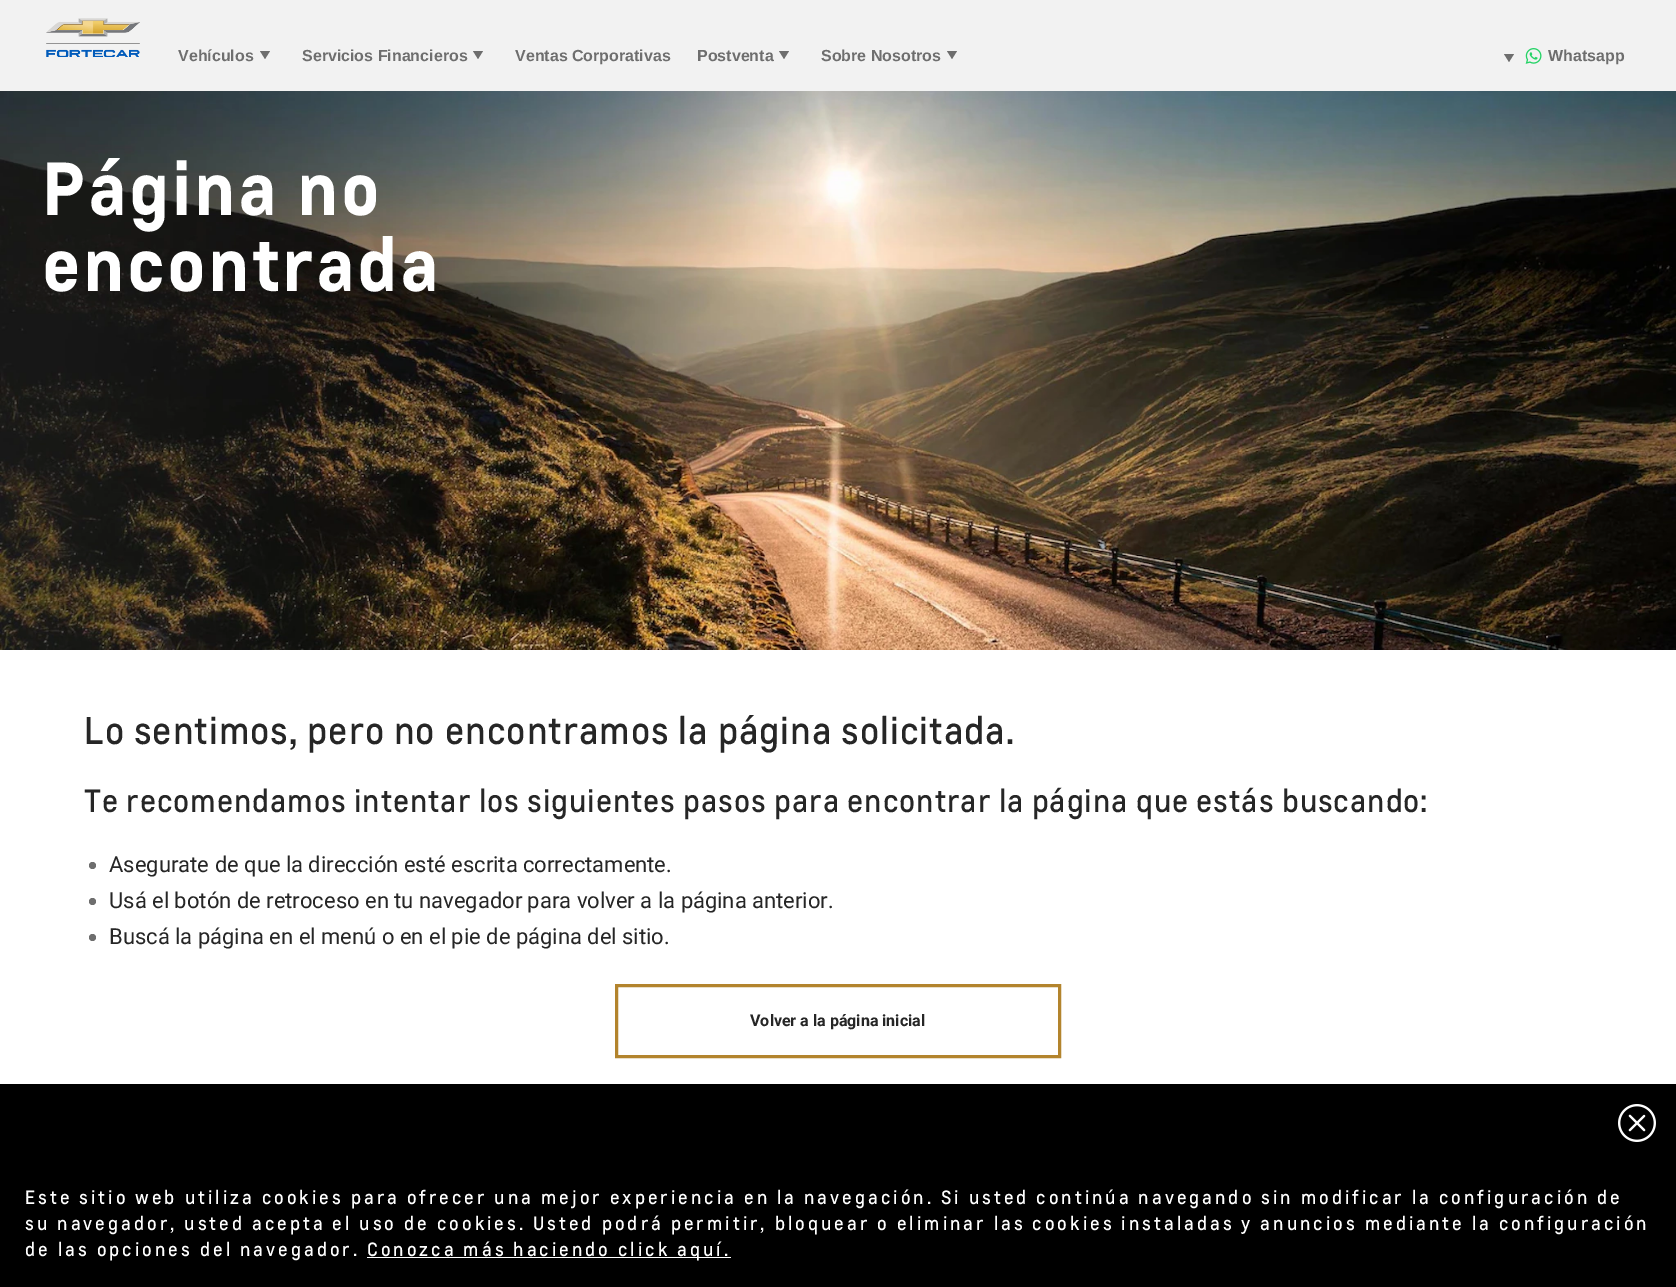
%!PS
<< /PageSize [1676 1287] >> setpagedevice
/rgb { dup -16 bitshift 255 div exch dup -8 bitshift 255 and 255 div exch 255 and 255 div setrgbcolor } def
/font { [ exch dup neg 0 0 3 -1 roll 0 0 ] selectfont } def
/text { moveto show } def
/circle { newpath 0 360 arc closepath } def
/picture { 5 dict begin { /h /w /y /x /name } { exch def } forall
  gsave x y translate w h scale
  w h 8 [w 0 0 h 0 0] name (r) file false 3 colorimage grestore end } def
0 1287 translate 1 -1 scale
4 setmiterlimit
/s1 { /LiberationSans-Bold 16 font 16#6E6E6E rgb } def
/s2 { /Roboto-Regular 22 font 16#262626 rgb } def
/s3 { /Roboto-Bold 16 font 16#262626 rgb } def
16#FFFFFF rgb
0 0 1676 1287 rectfill
16#F2F2F2 rgb
0 0 1676 91 rectfill
(pic1.raw) 46 18 94 39 picture
s1
(Vehículos) 178 61 text
260 51 moveto 270 51 lineto 265 59 lineto closepath fill
(Servicios Financieros) 302 61 text
473 51 moveto 483 51 lineto 478 59 lineto closepath fill
(Ventas Corporativas) 515 61 text
(Postventa) 697 61 text
779 51 moveto 789 51 lineto 784 59 lineto closepath fill
(Sobre Nosotros) 821 61 text
947 51 moveto 957 51 lineto 952 59 lineto closepath fill
1504 54 moveto 1514 54 lineto 1509 62 lineto closepath fill
(pic2.raw) 1525 48 17 16 picture
(Whatsapp) 1548 61 text
(pic3.raw) 0 91 1676 559 picture
/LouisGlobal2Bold-Bold 70 font
16#FFFFFF rgb
42 215 moveto 2.25 0 (Página no) ashow
42 291 moveto 2.25 0 (encontrada) ashow
/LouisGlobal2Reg-Regular 36 font
16#262626 rgb
84 744 moveto 0.95 0 (Lo sentimos, pero no encontramos la página solicitada.) ashow
/LouisGlobal2Reg-Regular 30 font
84 812 moveto 0.95 0 (Te recomendamos intentar los siguientes pasos para encontrar la página que estás buscando:) ashow
16#6E6E6E rgb
92.5 865.5 3.5 circle fill
s2
(Asegurate de que la dirección esté escrita correctamente.) 109 872 text
16#6E6E6E rgb
92.5 901.5 3.5 circle fill
s2
(Usá el botón de retroceso en tu navegador para volver a la página anterior.) 109 908 text
16#6E6E6E rgb
92.5 937.5 3.5 circle fill
s2
(Buscá la página en el menú o en el pie de página del sitio.) 109 944 text
16#B3842D rgb
3 setlinewidth
616.5 985.5 443 71 rectstroke
s3
(Volver a la página inicial) 750 1026 text
16#000000 rgb
0 1084 1676 203 rectfill
(pic4.raw) 1618 1104 38 38 picture
/LouisGlobal2Reg-Regular 18 font
16#FFFFFF rgb
25 1204 moveto 3 0 (Este sitio web utiliza cookies para ofrecer una mejor experiencia en la navegación. Si usted continúa navegando sin modificar la configuración de) ashow
25 1230 moveto 3 0 (su navegador, usted acepta el uso de cookies. Usted podrá permitir, bloquear o eliminar las cookies instaladas y anuncios mediante la configuración) ashow
25 1256 moveto 3 0 (de las opciones del navegador.) ashow
367 1257 364 1 rectfill
367 1256 moveto 3 0 (Conozca más haciendo click aquí.) ashow
showpage
